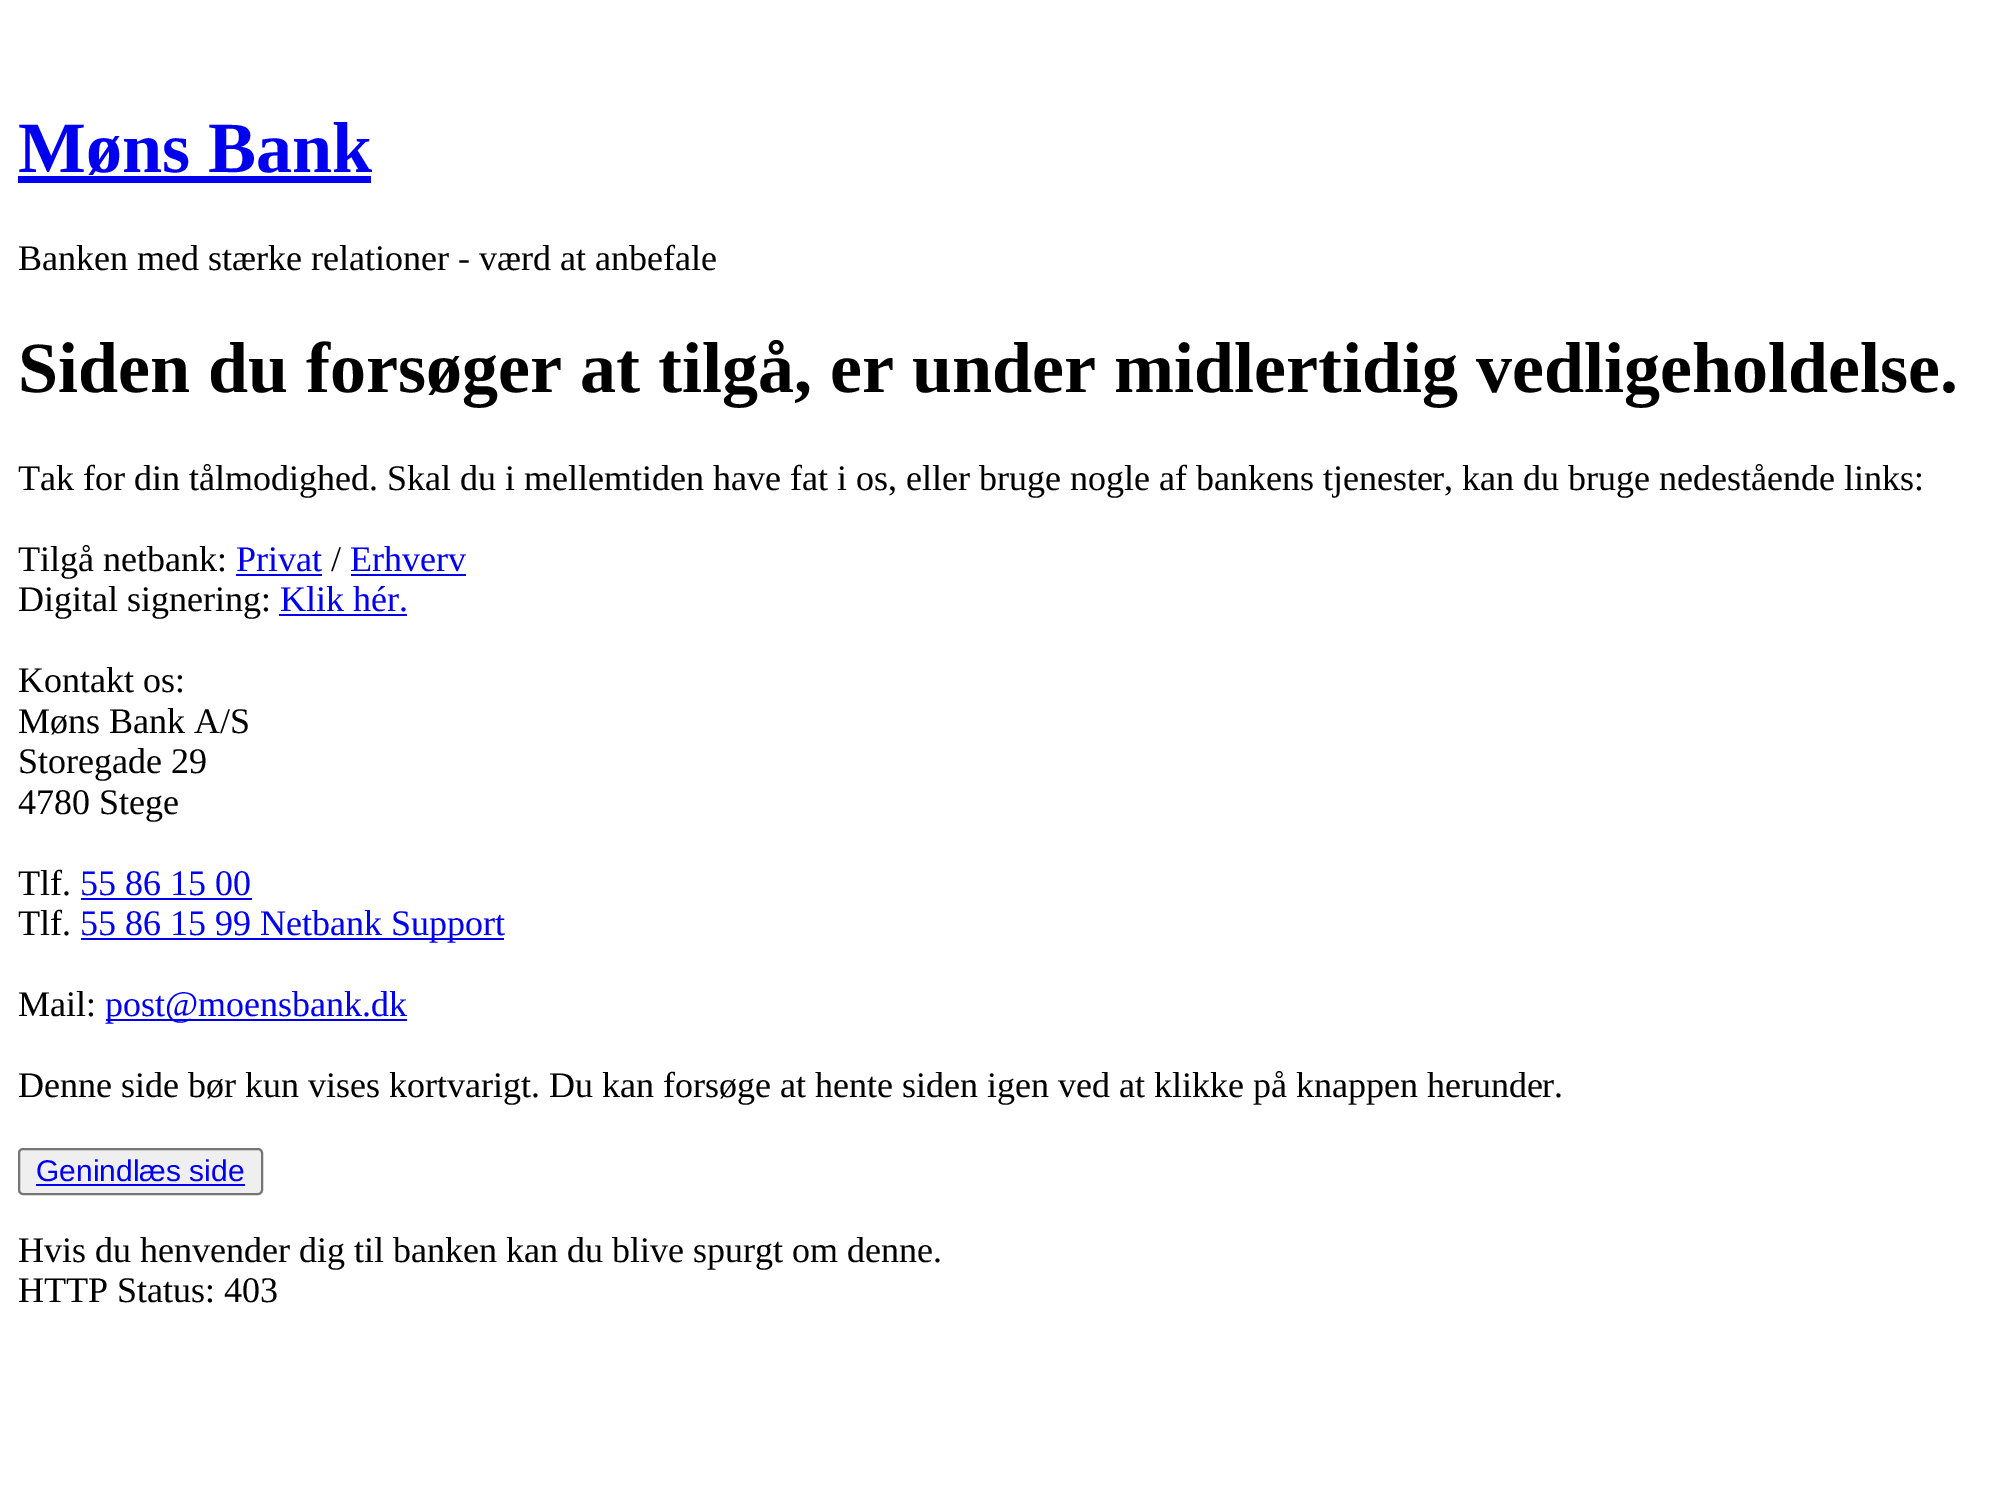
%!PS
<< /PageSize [2009 1486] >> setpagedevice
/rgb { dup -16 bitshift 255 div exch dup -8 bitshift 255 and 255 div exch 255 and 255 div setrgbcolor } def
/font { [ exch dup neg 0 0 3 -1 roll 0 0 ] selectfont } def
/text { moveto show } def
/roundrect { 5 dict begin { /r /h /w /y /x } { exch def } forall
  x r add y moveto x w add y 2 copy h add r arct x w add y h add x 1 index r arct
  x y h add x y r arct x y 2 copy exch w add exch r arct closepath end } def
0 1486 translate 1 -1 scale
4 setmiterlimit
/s1 { /LiberationSerif-Bold 72 font 16#0000EE rgb } def
/s2 { /LiberationSerif-Regular 36 font 16#000000 rgb } def
/s3 { /LiberationSerif-Bold 72 font 16#000000 rgb } def
/s4 { /LiberationSerif-Regular 36 font 16#0000EE rgb } def
/s5 { /LiberationSans-Regular 30 font 16#0000EE rgb } def
16#FFFFFF rgb
0 0 2009 1486 rectfill
s1
(Møns Bank) 18 172 text
18 176 353 7 rectfill
s2
(Banken med stærke relationer - værd at anbefale) 18 270 text
s3
(Siden du forsøger at tilgå, er under midlertidig vedligeholdelse.) 18 392 text
s2
(Tak for din tålmodighed. Skal du i mellemtiden have fat i os, eller bruge nogle af bankens tjenester, kan du bruge nedestående links:) 18 490 text
(Tilgå netbank:) 18 571 text
s4
(Privat) 236 571 text
236 574 86 2 rectfill
s2
(/) 331 571 text
s4
(Erhverv) 350 571 text
351 574 115 2 rectfill
s2
(Digital signering:) 18 611 text
s4
(Klik hér.) 280 611 text
279 614 128 2 rectfill
s2
(Kontakt os:) 18 692 text
(Møns Bank A/S) 18 733 text
(Storegade 29) 18 773 text
(4780 Stege) 18 814 text
(Tlf.) 18 895 text
s4
(55 86 15 00) 80 895 text
81 898 171 2 rectfill
s2
(Tlf.) 18 935 text
16#0000EE rgb
81 938 423 2 rectfill
(55 86 15 99 Netbank Support) 80 935 text
s2
(Mail:) 18 1016 text
16#0000EE rgb
106 1019 301 2 rectfill
(post@moensbank.dk) 105 1016 text
s2
(Denne side bør kun vises kortvarigt. Du kan forsøge at hente siden igen ved at klikke på knappen herunder.) 18 1097 text
16#EFEFEF rgb
19 1149 243 45 4 roundrect gsave fill grestore
16#767676 rgb
2 setlinewidth
stroke
s5
(Genindlæs side) 36 1181 text
36 1184 209 2 rectfill
s2
(Hvis du henvender dig til banken kan du blive spurgt om denne.) 18 1262 text
(HTTP Status: 403) 18 1302 text
showpage
